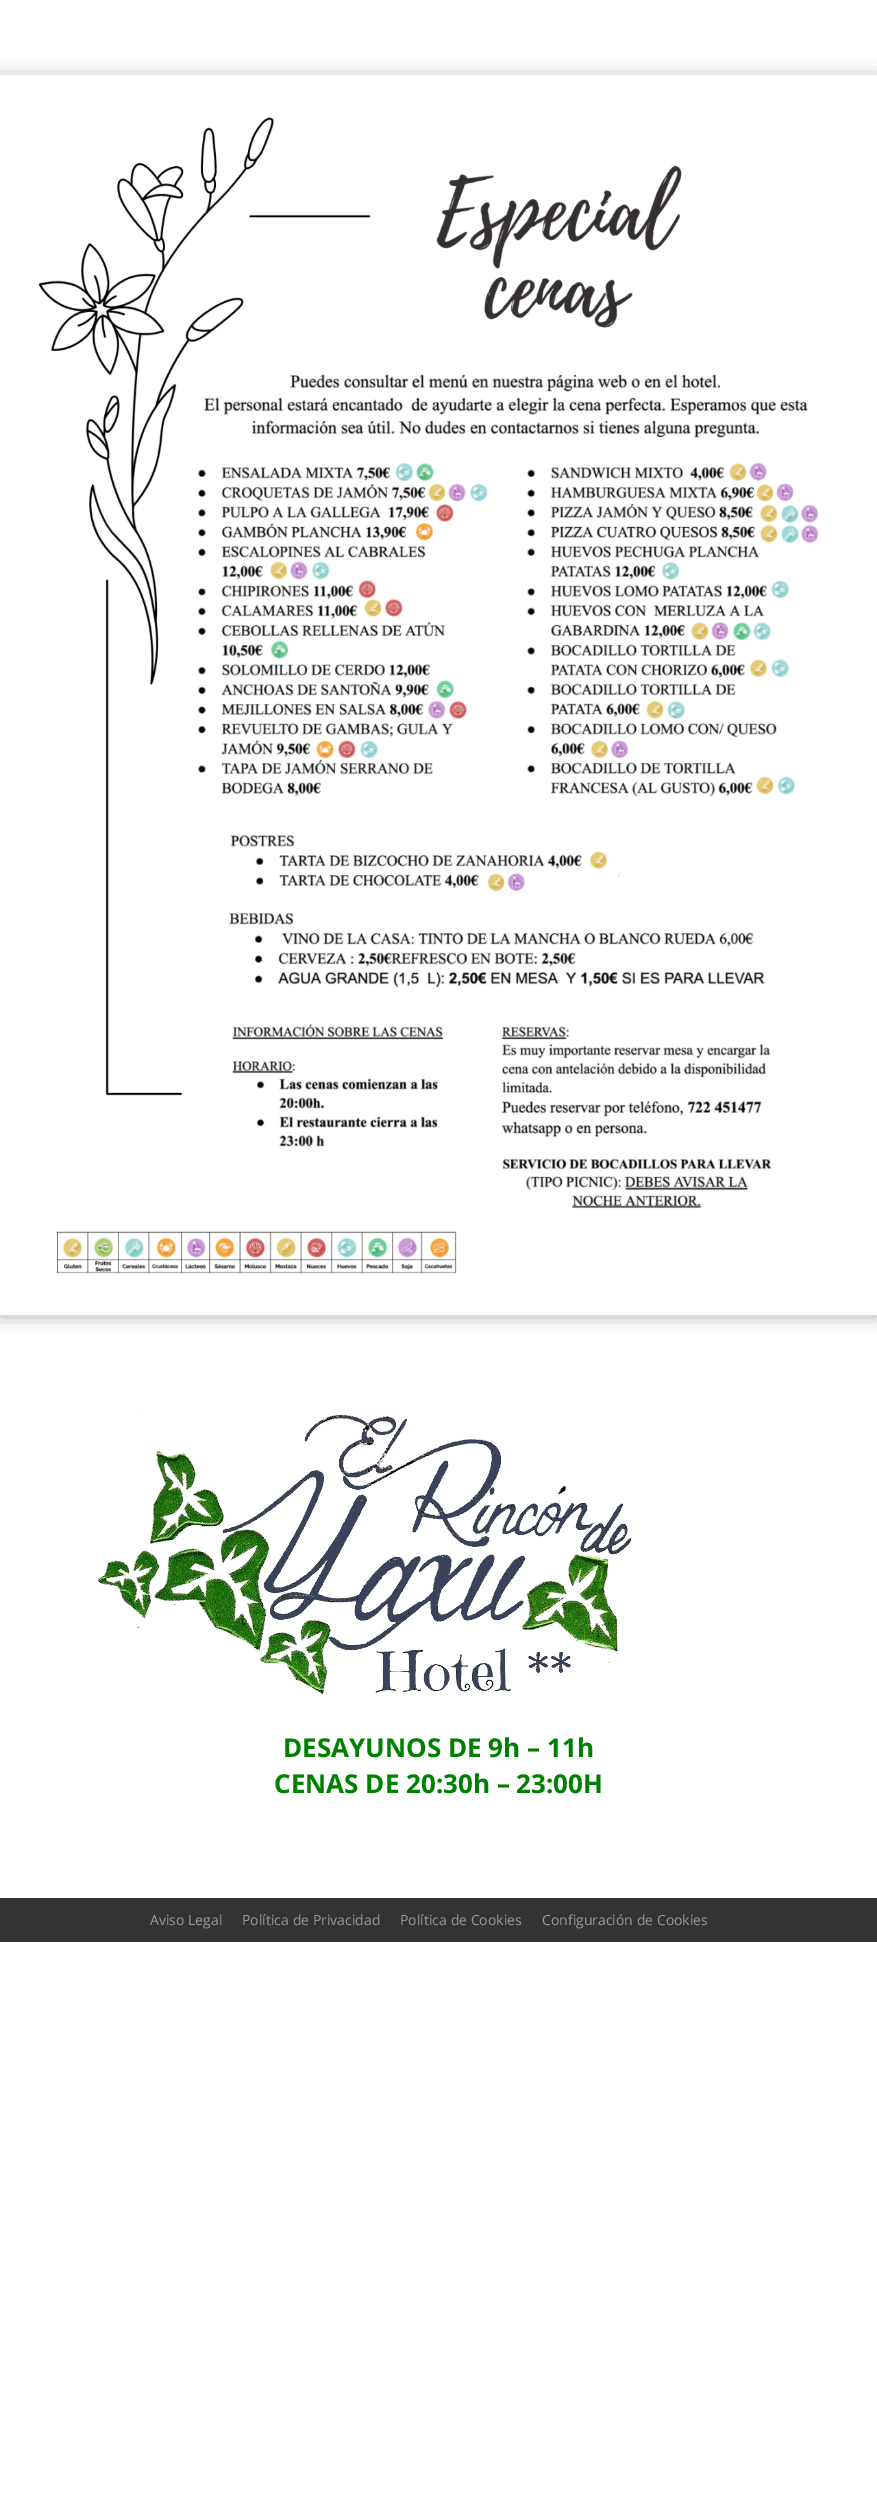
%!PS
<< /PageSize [877 2514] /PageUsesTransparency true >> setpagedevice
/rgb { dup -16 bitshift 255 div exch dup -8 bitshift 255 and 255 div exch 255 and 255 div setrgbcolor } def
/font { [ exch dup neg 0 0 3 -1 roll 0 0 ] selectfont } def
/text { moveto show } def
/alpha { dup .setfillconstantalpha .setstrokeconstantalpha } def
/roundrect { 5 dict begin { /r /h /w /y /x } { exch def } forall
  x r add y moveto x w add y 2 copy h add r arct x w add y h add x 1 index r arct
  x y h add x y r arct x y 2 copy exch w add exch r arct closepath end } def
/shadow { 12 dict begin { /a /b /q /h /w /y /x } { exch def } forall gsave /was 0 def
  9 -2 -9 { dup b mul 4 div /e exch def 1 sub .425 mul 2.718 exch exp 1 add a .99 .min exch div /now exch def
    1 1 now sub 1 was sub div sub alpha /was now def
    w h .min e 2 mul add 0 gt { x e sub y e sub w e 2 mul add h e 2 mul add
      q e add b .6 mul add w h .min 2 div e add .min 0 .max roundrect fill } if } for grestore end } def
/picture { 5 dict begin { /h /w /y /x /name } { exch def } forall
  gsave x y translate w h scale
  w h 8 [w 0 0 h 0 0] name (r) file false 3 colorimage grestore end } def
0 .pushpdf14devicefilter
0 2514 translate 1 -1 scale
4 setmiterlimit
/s1 { /OpenSans-Bold 26 font 16#008000 rgb } def
/s2 { /OpenSans-Regular 14 font 16#999999 rgb } def
16#FFFFFF rgb
0 0 877 2514 rectfill
gsave
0 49 moveto 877 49 lineto 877 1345 lineto 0 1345 lineto closepath 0 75 moveto 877 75 lineto 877 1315 lineto 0 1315 lineto closepath eoclip newpath
16#000000 rgb
0 77 877 1240 0 9 0.3 shadow
grestore
(pic1.raw) 38 117 781 1157 picture
(pic2.raw) 97 1412 535 283 picture
s1
(DESAYUNOS DE 9h – 11h) 283 1757 text
(CENAS DE 20:30h – 23:00H) 274 1793 text
16#333333 rgb
0 1898 877 44 rectfill
s2
(Aviso Legal) 150 1925 text
(Política de Privacidad) 242 1925 text
(Política de Cookies) 400 1925 text
(Configuración de Cookies) 542 1925 text
.poppdf14devicefilter showpage
